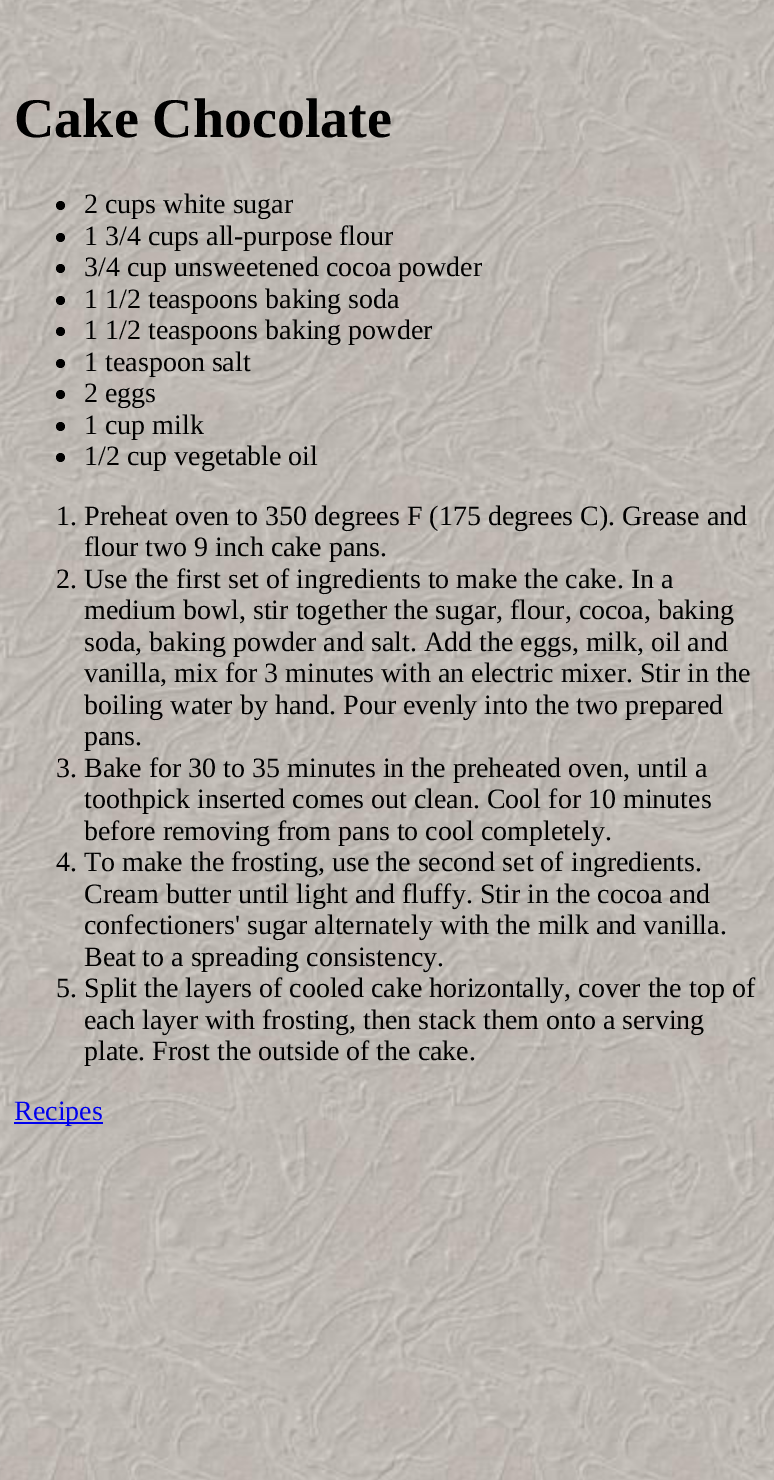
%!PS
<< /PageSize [774 1480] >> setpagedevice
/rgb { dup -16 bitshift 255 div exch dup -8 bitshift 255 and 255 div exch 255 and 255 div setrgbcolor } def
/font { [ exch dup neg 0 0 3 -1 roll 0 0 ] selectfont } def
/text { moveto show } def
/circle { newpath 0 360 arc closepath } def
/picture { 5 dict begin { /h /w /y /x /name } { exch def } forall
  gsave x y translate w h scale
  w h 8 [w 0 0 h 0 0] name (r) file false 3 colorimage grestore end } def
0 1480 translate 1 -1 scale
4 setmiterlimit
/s1 { /LiberationSerif-Bold 56 font 16#000000 rgb } def
/s2 { /LiberationSerif-Regular 28 font 16#000000 rgb } def
/s3 { /LiberationSerif-Regular 28 font 16#0000EE rgb } def
16#FFFFFF rgb
0 0 774 1480 rectfill
(pic1.raw) 0 0 774 1480 picture
s1
(Cake Chocolate) 14 137 text
60.5 205.5 4.5 circle fill
s2
(2 cups white sugar) 84 213 text
60.5 237.5 4.5 circle fill
(1 3/4 cups all-purpose flour) 84 245 text
60.5 268.5 4.5 circle fill
(3/4 cup unsweetened cocoa powder) 84 276 text
60.5 300.5 4.5 circle fill
(1 1/2 teaspoons baking soda) 84 308 text
60.5 331.5 4.5 circle fill
(1 1/2 teaspoons baking powder) 84 339 text
60.5 363.5 4.5 circle fill
(1 teaspoon salt) 84 371 text
60.5 394.5 4.5 circle fill
(2 eggs) 84 402 text
60.5 426.5 4.5 circle fill
(1 cup milk) 84 434 text
60.5 457.5 4.5 circle fill
(1/2 cup vegetable oil) 84 465 text
(1. Preheat oven to 350 degrees F \(175 degrees C\). Grease and) 56 525 text
(flour two 9 inch cake pans.) 84 556 text
(2. Use the first set of ingredients to make the cake. In a) 56 588 text
(medium bowl, stir together the sugar, flour, cocoa, baking) 84 619 text
(soda, baking powder and salt. Add the eggs, milk, oil and) 84 651 text
(vanilla, mix for 3 minutes with an electric mixer. Stir in the) 84 682 text
(boiling water by hand. Pour evenly into the two prepared) 84 714 text
(pans.) 84 745 text
(3. Bake for 30 to 35 minutes in the preheated oven, until a) 56 777 text
(toothpick inserted comes out clean. Cool for 10 minutes) 84 808 text
(before removing from pans to cool completely.) 84 840 text
(4. To make the frosting, use the second set of ingredients.) 56 871 text
(Cream butter until light and fluffy. Stir in the cocoa and) 84 903 text
(confectioners' sugar alternately with the milk and vanilla.) 84 934 text
(Beat to a spreading consistency.) 84 966 text
(5. Split the layers of cooled cake horizontally, cover the top of) 56 997 text
(each layer with frosting, then stack them onto a serving) 84 1029 text
(plate. Frost the outside of the cake.) 84 1060 text
16#0000EE rgb
14 1122 89 2 rectfill
(Recipes) 14 1120 text
showpage
